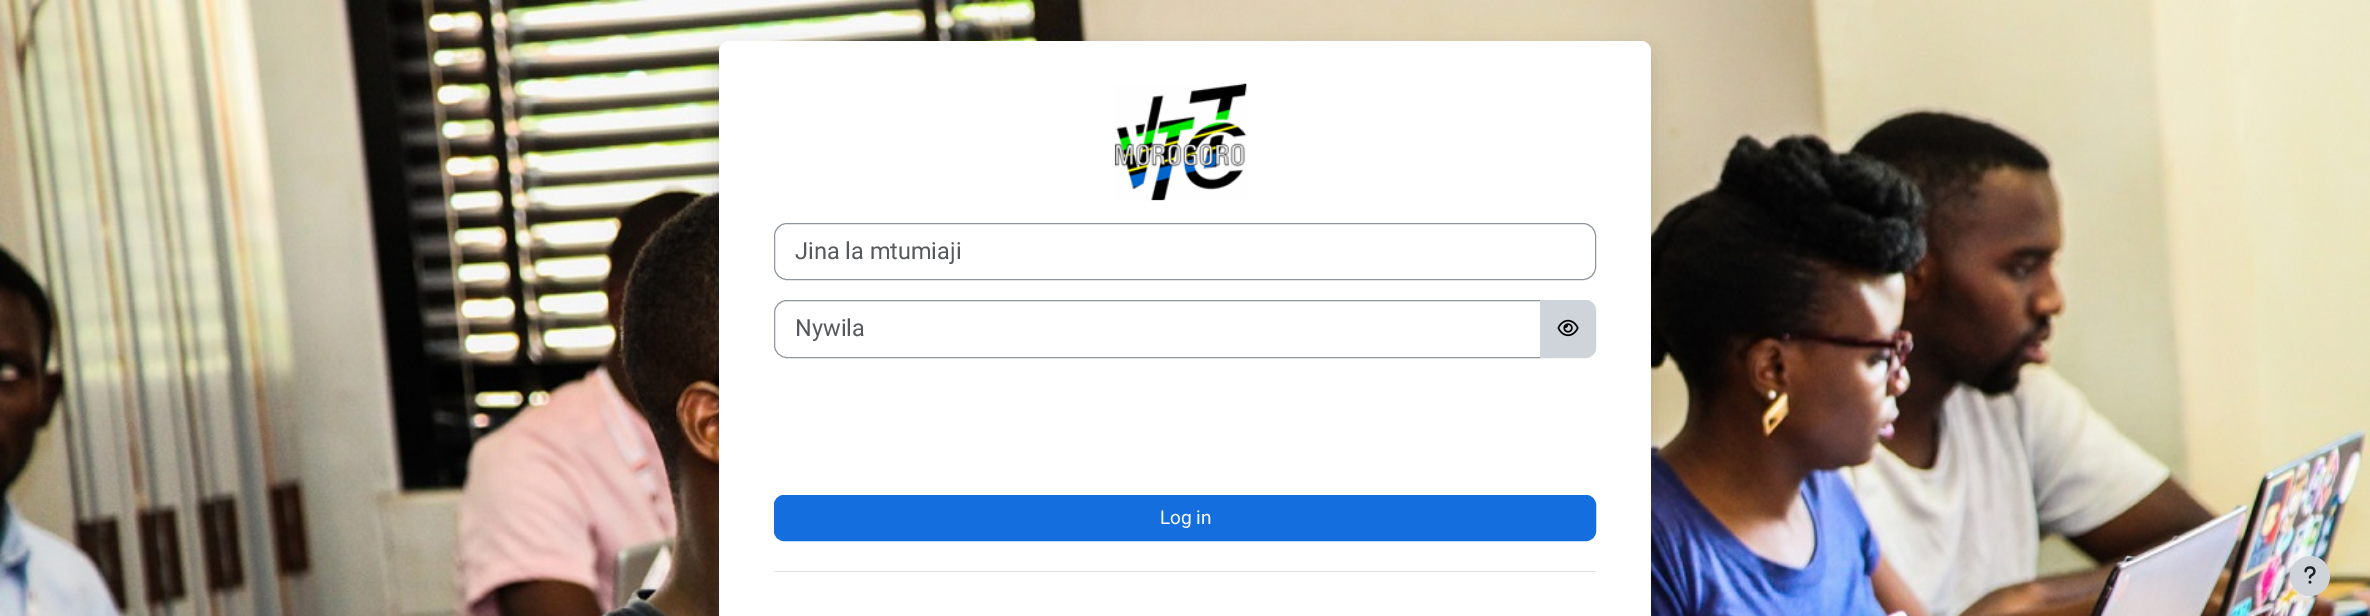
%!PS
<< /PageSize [2370 616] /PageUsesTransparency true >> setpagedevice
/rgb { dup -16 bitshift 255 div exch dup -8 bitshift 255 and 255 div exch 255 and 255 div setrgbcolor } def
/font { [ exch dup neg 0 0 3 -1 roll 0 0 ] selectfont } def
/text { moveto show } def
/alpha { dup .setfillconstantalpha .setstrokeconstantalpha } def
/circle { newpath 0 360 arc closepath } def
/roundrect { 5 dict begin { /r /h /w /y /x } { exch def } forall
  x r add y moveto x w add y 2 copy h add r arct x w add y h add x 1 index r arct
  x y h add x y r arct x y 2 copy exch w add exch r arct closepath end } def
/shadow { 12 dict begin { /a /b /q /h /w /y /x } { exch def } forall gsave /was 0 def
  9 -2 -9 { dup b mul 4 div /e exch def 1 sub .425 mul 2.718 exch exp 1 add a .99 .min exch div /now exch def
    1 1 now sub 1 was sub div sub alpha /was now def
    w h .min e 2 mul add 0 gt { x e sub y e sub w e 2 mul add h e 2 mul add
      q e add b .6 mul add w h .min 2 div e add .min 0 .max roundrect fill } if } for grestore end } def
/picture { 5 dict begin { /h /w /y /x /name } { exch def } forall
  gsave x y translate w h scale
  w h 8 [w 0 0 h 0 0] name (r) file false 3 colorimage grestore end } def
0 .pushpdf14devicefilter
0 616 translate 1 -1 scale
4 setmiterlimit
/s1 { /Roboto-Regular 23.5 font 16#56595C rgb } def
/s2 { /Roboto-Regular 19 font 16#FFFFFF rgb } def
16#FFFFFF rgb
0 0 2370 616 rectfill
(pic1.raw) 0 0 2370 616 picture
16#000000 rgb
719 51 932 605 10 10 0.15 shadow
16#FFFFFF rgb
719 41 932 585 10 roundrect fill
(pic2.raw) 1114 83 133 118 picture
16#8F959E rgb
774.5 223.5 821 56 12.5 roundrect stroke
s1
(Jina la mtumiaji) 795 259 text
16#8F959E rgb
787 300.5 moveto 1540.5 300.5 lineto 1540.5 357.5 lineto 787 357.5 lineto 780 357.5 774.5 352 774.5 345 curveto 774.5 313 lineto 774.5 306 780 300.5 787 300.5 curveto closepath stroke
s1
(Nywila) 795 336 text
16#CED4DA rgb
1540.5 300.5 moveto 1586 300.5 lineto 1591 300.5 1595.5 305 1595.5 310 curveto 1595.5 348 lineto 1595.5 353 1591 357.5 1586 357.5 curveto 1540.5 357.5 lineto closepath gsave fill grestore
stroke
(pic3.raw) 1557 319 22 18 picture
16#156EDE rgb
774.5 495.5 821 45 9.5 roundrect gsave fill grestore
stroke
s2
(Log in) 1160 524 text
16#DEE2E6 rgb
774 571 822 1 rectfill
16#CED4DA rgb
2310 576 20 circle fill
(pic4.raw) 2304 566 12 18 picture
.poppdf14devicefilter showpage
